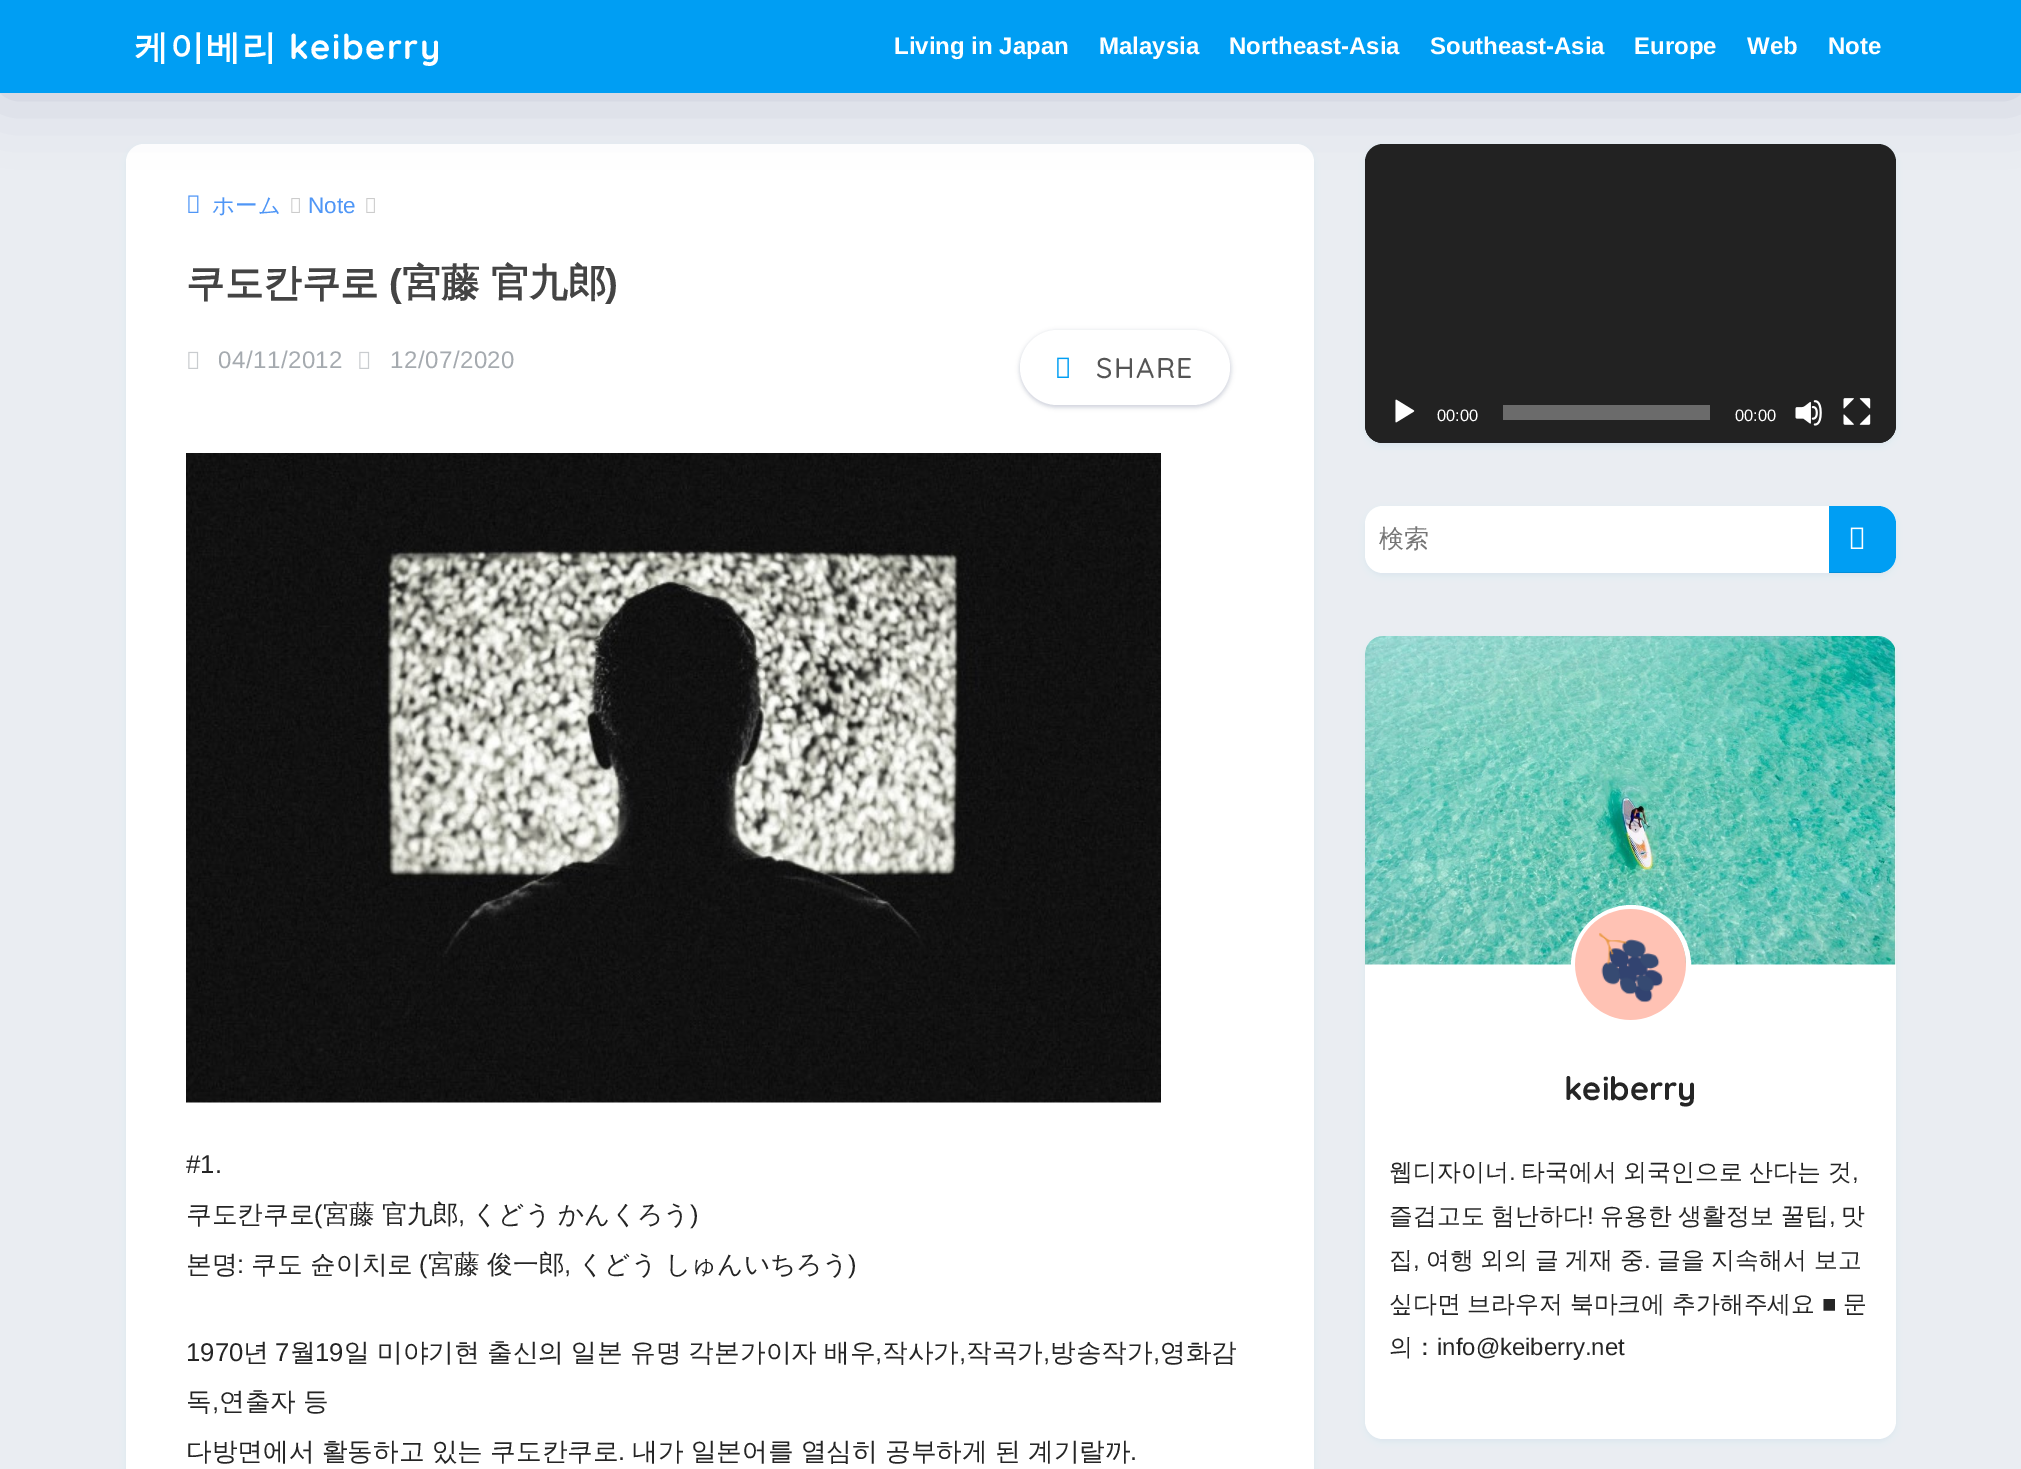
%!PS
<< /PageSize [2021 1469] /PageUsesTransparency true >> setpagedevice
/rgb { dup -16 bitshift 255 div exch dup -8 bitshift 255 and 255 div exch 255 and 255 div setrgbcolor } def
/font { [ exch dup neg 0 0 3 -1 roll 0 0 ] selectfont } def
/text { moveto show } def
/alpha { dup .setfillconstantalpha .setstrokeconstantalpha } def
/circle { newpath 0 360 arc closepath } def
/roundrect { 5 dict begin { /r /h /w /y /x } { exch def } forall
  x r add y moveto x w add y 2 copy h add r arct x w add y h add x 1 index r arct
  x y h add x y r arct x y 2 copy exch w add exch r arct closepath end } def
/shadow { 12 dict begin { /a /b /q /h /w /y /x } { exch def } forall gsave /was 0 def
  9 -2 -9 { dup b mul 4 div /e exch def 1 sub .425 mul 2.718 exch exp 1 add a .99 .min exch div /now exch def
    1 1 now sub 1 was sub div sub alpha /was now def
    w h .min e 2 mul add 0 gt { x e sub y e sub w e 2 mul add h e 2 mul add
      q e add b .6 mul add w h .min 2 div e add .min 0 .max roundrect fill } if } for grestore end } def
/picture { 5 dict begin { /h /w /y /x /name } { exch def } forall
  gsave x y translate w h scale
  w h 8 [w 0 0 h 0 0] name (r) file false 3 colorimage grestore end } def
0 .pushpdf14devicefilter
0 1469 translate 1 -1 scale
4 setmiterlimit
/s1 { /LiberationSans-Bold 24 font 16#FFFFFF rgb } def
/s2 { /WenQuanYiZenHei-Medium 22.5 font 16#4F96F6 rgb } def
/s3 { /LiberationSans-Regular 22.5 font 16#4F96F6 rgb } def
/s4 { /WenQuanYiZenHei-Bold 38.5 font 16#444444 rgb } def
/s5 { /LiberationSans-Bold 38.5 font 16#444444 rgb } def
/s6 { /LiberationSans-Regular 25.7 font 16#252525 rgb } def
/s7 { /WenQuanYiZenHei-Medium 25.7 font 16#252525 rgb } def
/s8 { /LiberationSans-Regular 16.5 font 16#FFFFFF rgb } def
/s9 { /WenQuanYiZenHei-Medium 25 font 16#757575 rgb } def
/s10 { /Quicksand-Bold 32.5 font 16#252525 rgb } def
/s11 { /WenQuanYiZenHei-Medium 23.9 font 16#252525 rgb } def
/s12 { /LiberationSans-Regular 23.9 font 16#252525 rgb } def
16#EAEDF2 rgb
0 0 2021 1469 rectfill
16#4385BB rgb
126 147 1188 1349 18 3 0.07 shadow
16#FFFFFF rgb
126 144 1188 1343 18 roundrect fill
(pic1.raw) 188 195 11 18 picture
16#4385BB rgb
1365 147 531 299 18 3 0.07 shadow
16#222222 rgb
1365 144 531 299 18 roundrect fill
16#000C42 rgb
0 0 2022 93 0 34 0.16 shadow
16#009EF3 rgb
0 0 2021 93 rectfill
/WenQuanYiZenHei-Bold 34.5 font
16#FFFFFF rgb
134 59 moveto 1.5 0 (케이베리) ashow
/Quicksand-Bold 34.5 font
289 59 moveto 1.5 0 (keiberry) ashow
s1
(Living in Japan) 894 54 text
(Malaysia) 1099 54 text
(Northeast-Asia) 1229 54 text
(Southeast-Asia) 1430 54 text
(Europe) 1634 54 text
(Web) 1747 54 text
(Note) 1828 54 text
s2
(ホーム) 212 213 text
(pic2.raw) 291 198 9 15 picture
s3
(Note) 308 213 text
(pic2.raw) 366 198 9 15 picture
s4
(쿠도칸쿠로) 186 296 text
s5
(\() 389 296 text
s4
(宮藤 官九郎) 402 296 text
s5
(\)) 605 296 text
(pic3.raw) 188 351 11 18 picture
/LiberationSans-Regular 24 font
16#A5AAAF rgb
218 368 moveto 0.5 0 (04/11/2012) ashow
(pic3.raw) 359 351 11 18 picture
390 368 moveto 0.5 0 (12/07/2020) ashow
16#182C54 rgb
1019 330 213 78 39 2 0.1 shadow
1020 332 210 75 37.5 1.5 0.1 shadow
16#FFFFFF rgb
1020 330 210 75 37.5 roundrect fill
(pic4.raw) 1057 357 12 21 picture
/Quicksand-Medium 28.5 font
16#555555 rgb
1096 378 moveto 1.5 0 (SHARE) ashow
(pic5.raw) 186 453 975 650 picture
s6
(#1.) 186 1173 text
s7
(쿠도칸쿠로) 186 1223 text
s6
(\() 314 1223 text
/WenQuanYiZenHei-Medium 25.7 font
323 1223 moveto -0.5 0 32 (宮藤 官九郎) widthshow
s6
(,) 458 1223 text
/WenQuanYiZenHei-Medium 25.7 font
472 1223 moveto -0.5 0 32 (くどう かんくろう) widthshow
s6
(\)) 690 1223 text
s7
(본명) 186 1273 text
s6
(:) 237 1273 text
s7
(쿠도 슌이치로) 251 1273 text
s6
(\() 419 1273 text
s7
(宮藤 俊一郎) 428 1273 text
s6
(,) 564 1273 text
s7
(くどう しゅんいちろう) 578 1273 text
s6
(\)) 848 1273 text
(1970) 186 1361 text
s7
(년) 243 1361 text
s6
(7) 275 1361 text
s7
(월) 290 1361 text
s6
(19) 315 1361 text
/WenQuanYiZenHei-Medium 25.7 font
344 1361 moveto -0.5 0 32 (일 미야기현 출신의 일본 유명 각본가이자 배우) widthshow
s6
(,) 875 1361 text
s7
(작사가) 882 1361 text
s6
(,) 959 1361 text
s7
(작곡가) 966 1361 text
s6
(,) 1043 1361 text
s7
(방송작가) 1050 1361 text
s6
(,) 1153 1361 text
s7
(영화감) 1160 1361 text
(독) 186 1410 text
s6
(,) 212 1410 text
/WenQuanYiZenHei-Medium 25.7 font
219 1410 moveto -0.5 0 32 (연출자 등) widthshow
186 1460 moveto -0.5 0 32 (다방면에서 활동하고 있는 쿠도칸쿠로) widthshow
s6
(.) 618 1460 text
/WenQuanYiZenHei-Medium 25.7 font
632 1460 moveto -0.5 0 32 (내가 일본어를 열심히 공부하게 된 계기랄까) widthshow
s6
(.) 1130 1460 text
16#222222 rgb
1365 383 moveto 1896 383 lineto 1896 425 lineto 1896 435 1888 443 1878 443 curveto 1383 443 lineto 1373 443 1365 435 1365 425 curveto closepath fill
(pic6.raw) 1395 399 20 24 picture
s8
(00:00) 1437 421 text
16#6B6B6B rgb
1503 405 207 15 rectfill
s8
(00:00) 1735 421 text
(pic7.raw) 1795 400 27 26 picture
(pic8.raw) 1843 398 28 27 picture
16#4385BB rgb
1365 509 531 67 18 3 0.07 shadow
16#FFFFFF rgb
1365 506 531 67 18 roundrect fill
s9
(検索) 1379 547 text
16#009EF3 rgb
1829 506 moveto 1878 506 lineto 1888 506 1896 514 1896 524 curveto 1896 555 lineto 1896 565 1888 573 1878 573 curveto 1829 573 lineto closepath fill
gsave
1365 506 531 67 18 roundrect clip newpath
0.1 alpha
16#000000 rgb
1829 572 54 1 rectfill
grestore
(pic9.raw) 1850 527 14 22 picture
16#4385BB rgb
1365 639 531 803 18 3 0.07 shadow
16#FFFFFF rgb
1365 636 531 803 18 roundrect fill
(pic10.raw) 1365 636 531 329 picture
5 setlinewidth
1631 965 57.5 circle stroke
(pic11.raw) 1575 909 111 111 picture
s10
(keiberry) 1564 1100 text
s11
(웹디자이너) 1389 1180 text
s12
(.) 1509 1180 text
/WenQuanYiZenHei-Medium 23.9 font
1521 1180 moveto -0.5 0 32 (타국에서 외국인으로 산다는 것) widthshow
s12
(,) 1852 1180 text
/WenQuanYiZenHei-Medium 23.9 font
1389 1224 moveto -0.5 0 32 (즐겁고도 험난하다) widthshow
s12
(!) 1587 1224 text
/WenQuanYiZenHei-Medium 23.9 font
1600 1224 moveto -0.5 0 32 (유용한 생활정보 꿀팁) widthshow
s12
(,) 1829 1224 text
s11
(맛) 1841 1224 text
(집) 1389 1268 text
s12
(,) 1413 1268 text
/WenQuanYiZenHei-Medium 23.9 font
1426 1268 moveto -0.5 0 32 (여행 외의 글 게재 중) widthshow
s12
(.) 1644 1268 text
/WenQuanYiZenHei-Medium 23.9 font
1657 1268 moveto -0.5 0 32 (글을 지속해서 보고) widthshow
1389 1312 moveto -0.5 0 32 (싶다면 브라우저 북마크에 추가해주세요) widthshow
s12
(■) 1822 1312 text
s11
(문) 1843 1312 text
(의：) 1389 1355 text
s12
(info@keiberry.net) 1437 1355 text
.poppdf14devicefilter showpage
